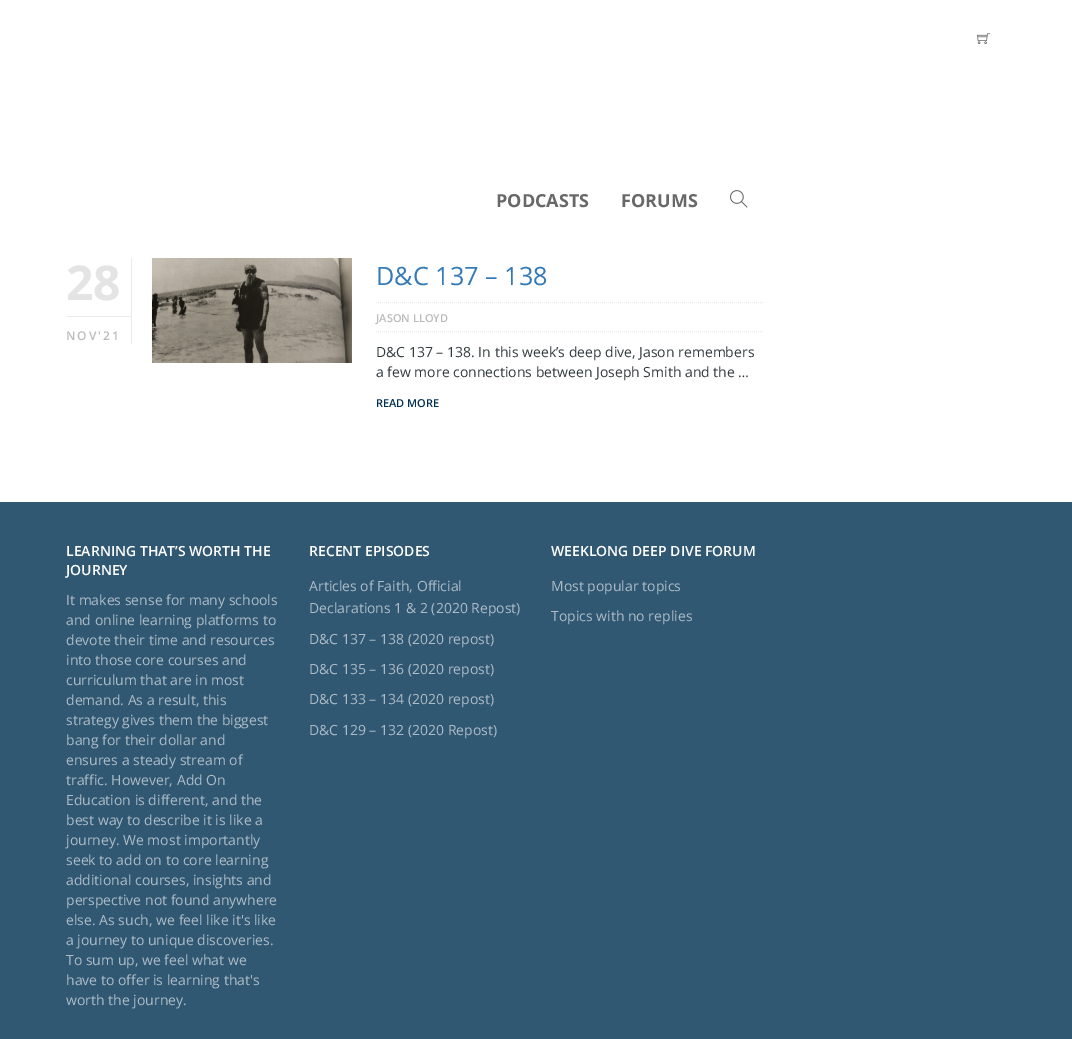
%!PS
<< /PageSize [1072 1039] >> setpagedevice
/rgb { dup -16 bitshift 255 div exch dup -8 bitshift 255 and 255 div exch 255 and 255 div setrgbcolor } def
/font { [ exch dup neg 0 0 3 -1 roll 0 0 ] selectfont } def
/text { moveto show } def
/picture { 5 dict begin { /h /w /y /x /name } { exch def } forall
  gsave x y translate w h scale
  w h 8 [w 0 0 h 0 0] name (r) file false 3 colorimage grestore end } def
0 1039 translate 1 -1 scale
4 setmiterlimit
/s1 { /OpenSans-Bold 18 font 16#686868 rgb } def
/s2 { /OpenSans-Bold 48 font 16#E4E4E4 rgb } def
/s3 { /OpenSans-Regular 25.25 font 16#337AB7 rgb } def
/s4 { /OpenSans-SemiBold 11 font 16#BBBBBB rgb } def
/s5 { /OpenSans-Regular 14 font 16#313B3D rgb } def
/s6 { /OpenSans-SemiBold 11 font 16#003152 rgb } def
/s7 { /OpenSans-SemiBold 14 font 16#FFFFFF rgb } def
/s8 { /OpenSans-Regular 14 font 16#ADBCC7 rgb } def
16#FFFFFF rgb
0 0 1072 1039 rectfill
(pic1.raw) 977 33 13 11 picture
s1
(PODCASTS) 496 207 text
(FORUMS) 621 207 text
(pic2.raw) 730 190 18 18 picture
16#EBEBEB rgb
131 258 1 86 rectfill
s2
(28) 66 300 text
16#EBEBEB rgb
66 316 65 1 rectfill
/OpenSans-SemiBold 12 font
16#BBBBBB rgb
66 340 moveto 2 0 (NOV'21) ashow
(pic3.raw) 151 257 201 106 picture
s3
(D&C 137 – 138) 376 285 text
16#EBEBEB rgb
[1 1] 0 setdash
376 302.5 moveto 764 302.5 lineto stroke
376 331.5 moveto 764 331.5 lineto stroke
s4
(JASON LLOYD) 376 322 text
s5
(D&C 137 – 138. In this week’s deep dive, Jason remembers) 376 357 text
(a few more connections between Joseph Smith and the …) 376 377 text
s6
(READ MORE) 376 407 text
16#315873 rgb
0 502 1072 537 rectfill
s7
(LEARNING THAT’S WORTH THE) 66 556 text
(JOURNEY) 66 575 text
s8
(It makes sense for many schools) 66 605 text
(and online learning platforms to) 66 625 text
(devote their time and resources) 66 645 text
(into those core courses and) 66 665 text
(curriculum that are in most) 66 685 text
(demand. As a result, this) 66 705 text
(strategy gives them the biggest) 66 725 text
(bang for their dollar and) 66 745 text
(ensures a steady stream of) 66 765 text
(traffic. However, Add On) 66 785 text
(Education is different, and the) 66 805 text
(best way to describe it is like a) 66 825 text
(journey. We most importantly) 66 845 text
(seek to add on to core learning) 66 865 text
(additional courses, insights and) 66 885 text
(perspective not found anywhere) 66 905 text
(else. As such, we feel like it's like) 66 925 text
(a journey to unique discoveries.) 66 945 text
(To sum up, we feel what we) 66 965 text
(have to offer is learning that's) 66 985 text
(worth the journey.) 66 1005 text
s7
(RECENT EPISODES) 309 556 text
s8
(Articles of Faith, Official) 309 591 text
(Declarations 1 & 2 \(2020 Repost\)) 309 613 text
(D&C 137 – 138 \(2020 repost\)) 309 644 text
(D&C 135 – 136 \(2020 repost\)) 309 674 text
(D&C 133 – 134 \(2020 repost\)) 309 704 text
(D&C 129 – 132 \(2020 Repost\)) 309 735 text
s7
(WEEKLONG DEEP DIVE FORUM) 551 556 text
s8
(Most popular topics) 551 591 text
(Topics with no replies) 551 621 text
showpage
